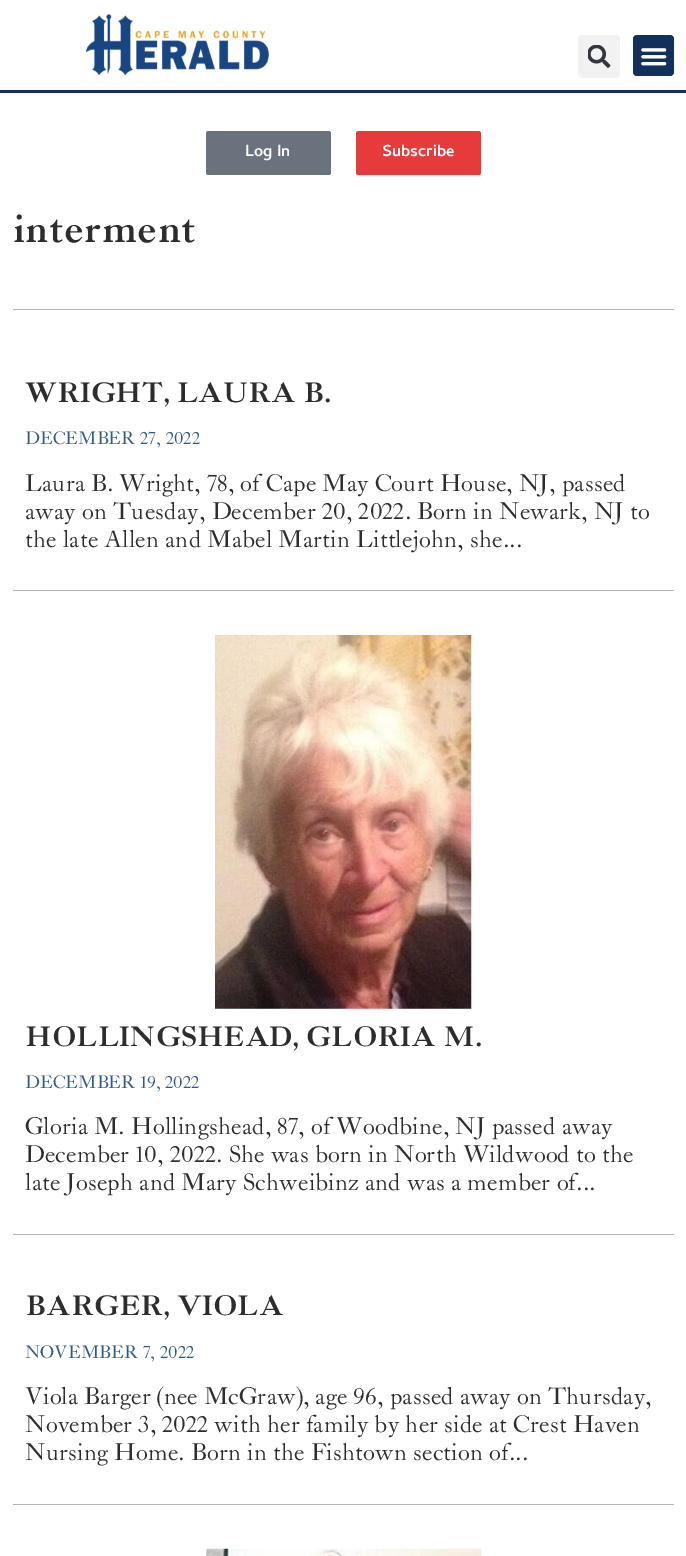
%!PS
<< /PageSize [686 1556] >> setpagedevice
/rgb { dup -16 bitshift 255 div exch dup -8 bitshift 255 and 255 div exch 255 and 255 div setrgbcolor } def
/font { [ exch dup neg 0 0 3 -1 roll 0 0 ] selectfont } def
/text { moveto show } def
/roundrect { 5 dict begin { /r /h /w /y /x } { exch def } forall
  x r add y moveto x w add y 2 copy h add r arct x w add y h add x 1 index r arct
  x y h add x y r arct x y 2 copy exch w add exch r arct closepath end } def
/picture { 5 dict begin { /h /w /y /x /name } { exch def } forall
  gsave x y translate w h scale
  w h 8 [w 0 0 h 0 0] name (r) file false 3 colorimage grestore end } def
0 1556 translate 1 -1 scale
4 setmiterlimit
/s1 { /Cambay-Bold 16.25 font 16#FFFFFF rgb } def
/s2 { /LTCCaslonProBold-Bold 40 font 16#2D2D2D rgb } def
/s3 { /LTCCaslonProBold-Bold 28 font 16#2D2D2D rgb } def
/s4 { /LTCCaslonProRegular-Regular 18 font 16#305B80 rgb } def
/s5 { /LTCCaslonProRegular-Regular 24 font 16#2D2D2D rgb } def
16#FFFFFF rgb
0 0 686 1556 rectfill
16#11315A rgb
0 90 686 3 rectfill
(pic1.raw) 85 14 184 62 picture
16#F2F2F2 rgb
578 35 42 43 4 roundrect fill
(pic2.raw) 588 45 23 23 picture
16#11315A rgb
633 35 41 41 4 roundrect fill
(pic3.raw) 641 48 26 18 picture
16#69727D rgb
206 131 125 44 2.5 roundrect fill
s1
(Log In) 245 156 text
16#E73B3B rgb
356 131 125 44 2.5 roundrect fill
s1
(Subscribe) 382 156 text
s2
(interment) 13 242 text
16#B3B3B3 rgb
13 309 661 1 rectfill
s3
(WRIGHT, LAURA B.) 25 402 text
s4
(DECEMBER 27, 2022) 25 444 text
s5
(Laura B. Wright, 78, of Cape May Court House, NJ, passed) 25 491 text
(away on Tuesday, December 20, 2022. Born in Newark, NJ to) 25 519 text
(the late Allen and Mabel Martin Littlejohn, she...) 25 547 text
16#B3B3B3 rgb
13 590 661 1 rectfill
(pic4.raw) 215 635 257 374 picture
s3
(HOLLINGSHEAD, GLORIA M.) 25 1046 text
s4
(DECEMBER 19, 2022) 25 1088 text
s5
(Gloria M. Hollingshead, 87, of Woodbine, NJ passed away) 25 1134 text
(December 10, 2022. She was born in North Wildwood to the) 25 1162 text
(late Joseph and Mary Schweibinz and was a member of...) 25 1190 text
16#B3B3B3 rgb
13 1234 661 1 rectfill
s3
(BARGER, VIOLA) 25 1315 text
s4
(NOVEMBER 7, 2022) 25 1358 text
s5
(Viola Barger \(nee McGraw\), age 96, passed away on Thursday,) 25 1404 text
(November 3, 2022 with her family by her side at Crest Haven) 25 1432 text
(Nursing Home. Born in the Fishtown section of...) 25 1460 text
16#B3B3B3 rgb
13 1504 661 1 rectfill
(pic5.raw) 206 1548 276 8 picture
showpage
